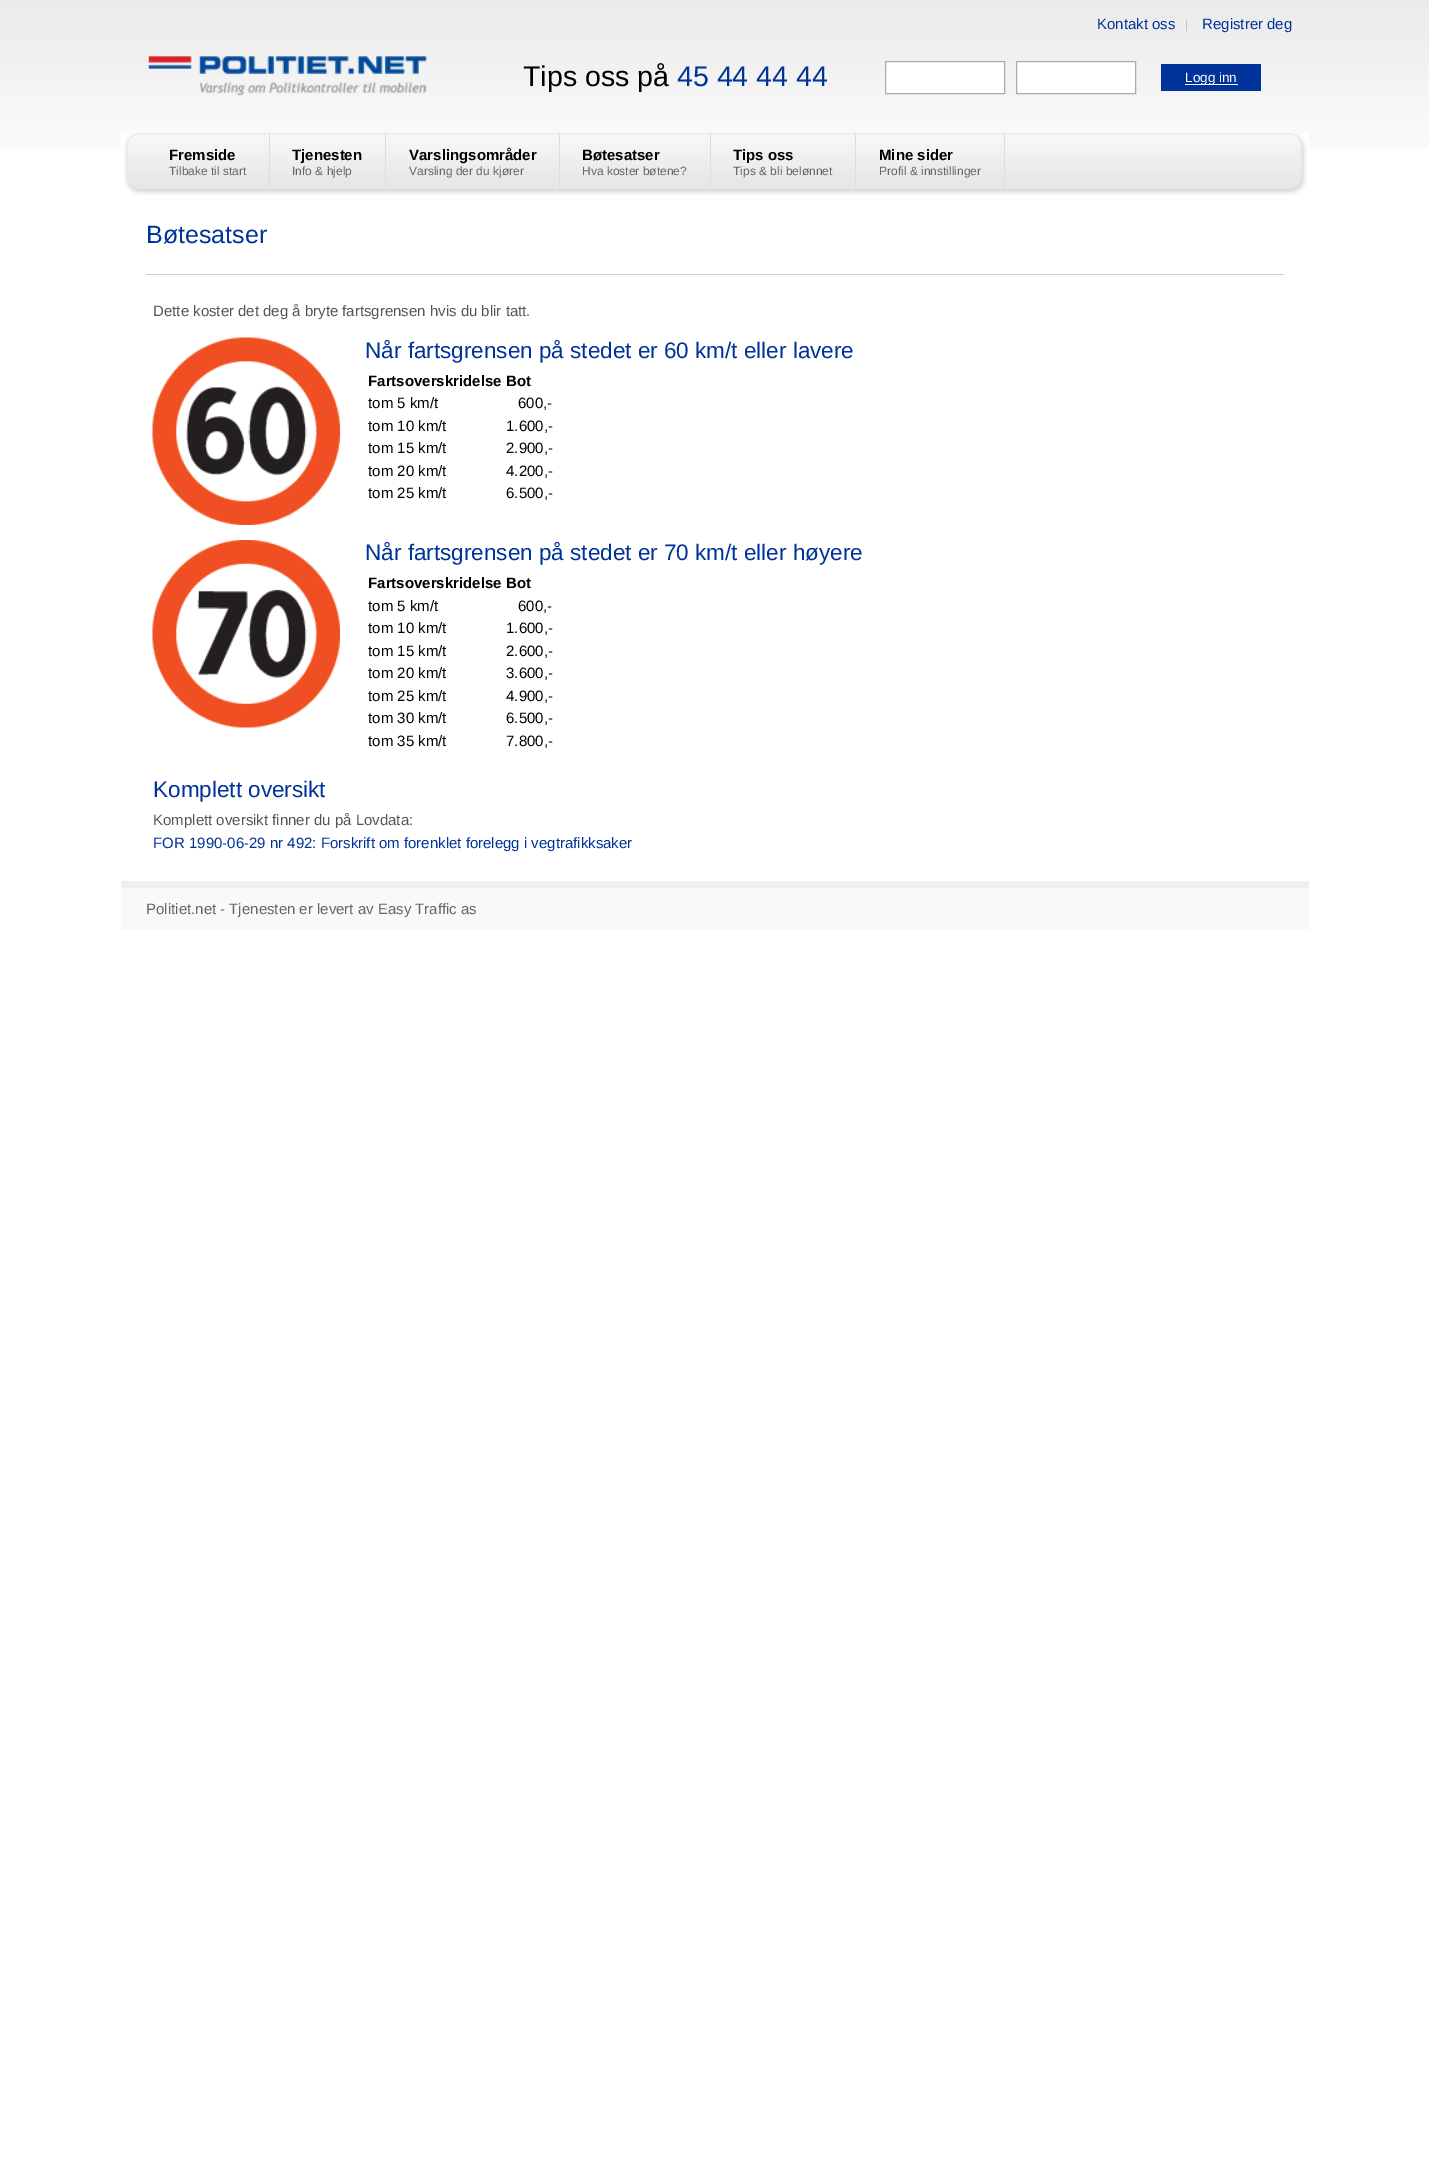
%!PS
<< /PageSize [1429 2169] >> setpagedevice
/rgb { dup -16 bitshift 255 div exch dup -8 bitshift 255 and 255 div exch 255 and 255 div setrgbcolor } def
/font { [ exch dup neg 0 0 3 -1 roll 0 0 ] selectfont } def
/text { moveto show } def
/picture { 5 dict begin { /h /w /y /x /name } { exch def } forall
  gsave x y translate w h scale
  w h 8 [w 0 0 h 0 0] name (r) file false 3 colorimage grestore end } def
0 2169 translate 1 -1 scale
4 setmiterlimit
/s1 { /LiberationSans-Regular 28.5 font 16#000000 rgb } def
/s2 { /LiberationSans-Regular 28.5 font 16#003399 rgb } def
/s3 { /LiberationSans-Regular 15 font 16#003399 rgb } def
/s4 { /LiberationSans-Regular 13.5 font 16#FFFFFF rgb } def
/s5 { /LiberationSans-Bold 15 font 16#000000 rgb } def
/s6 { /LiberationSans-Regular 12 font 16#666666 rgb } def
/s7 { /LiberationSans-Regular 25 font 16#003399 rgb } def
/s8 { /LiberationSans-Regular 15 font 16#555555 rgb } def
/s9 { /LiberationSans-Regular 22.5 font 16#003399 rgb } def
/s10 { /LiberationSans-Regular 15 font 16#000000 rgb } def
/s11 { /LiberationSans-Regular 15 font 16#666666 rgb } def
16#FFFFFF rgb
0 0 1429 2169 rectfill
(pic1.raw) 0 0 1429 149 picture
(pic2.raw) 148 56 279 40 picture
s1
(Tips oss på) 523 86 text
s2
(45 44 44 44) 677 86 text
s3
(Kontakt oss) 1097 29 text
16#C0C0C0 rgb
1186 20 1 11 rectfill
s3
(Registrer deg) 1202 29 text
16#FFFFFF rgb
885.5 61.5 moveto 1004.5 61.5 lineto 1004.5 93.5 lineto 885.5 93.5 lineto closepath gsave fill grestore
16#AAAAAA rgb
stroke
16#FFFFFF rgb
1016.5 61.5 moveto 1135.5 61.5 lineto 1135.5 93.5 lineto 1016.5 93.5 lineto closepath gsave fill grestore
16#AAAAAA rgb
stroke
16#003399 rgb
1161 64 100 27 rectfill
16#FFFFFF rgb
1185 84 53 1 rectfill
s4
(Logg inn) 1185 82 text
121 133 1188 16 rectfill
(pic3.raw) 124 133 1183 62 picture
16#DDDDDD rgb
269 133 1 55 rectfill
s5
(Fremside) 169 160 text
s6
(Tilbake til start) 169 175 text
16#DDDDDD rgb
385 133 1 55 rectfill
s5
(Tjenesten) 292 160 text
s6
(Info & hjelp) 292 175 text
16#DDDDDD rgb
559 133 1 55 rectfill
s5
(Varslingsområder) 409 160 text
s6
(Varsling der du kjører) 409 175 text
16#DDDDDD rgb
710 133 1 55 rectfill
s5
(Bøtesatser) 582 160 text
s6
(Hva koster bøtene?) 582 175 text
16#DDDDDD rgb
855 133 1 55 rectfill
s5
(Tips oss) 733 160 text
s6
(Tips & bli belønnet) 733 175 text
16#DDDDDD rgb
1004 133 1 55 rectfill
s5
(Mine sider) 879 160 text
s6
(Profil & innstillinger) 879 175 text
16#CCCCCC rgb
146 274 1138 1 rectfill
s7
(Bøtesatser) 146 243 text
s8
(Dette koster det deg å bryte fartsgrensen hvis du blir tatt.) 153 316 text
(pic4.raw) 152 337 188 188 picture
s9
(Når fartsgrensen på stedet er 60 km/t eller lavere) 365 358 text
s5
(Fartsoverskridelse) 368 386 text
(Bot) 506 386 text
s10
(tom 5 km/t) 368 408 text
(600,-) 518 408 text
(tom 10 km/t) 368 431 text
(1.600,-) 506 431 text
(tom 15 km/t) 368 453 text
(2.900,-) 506 453 text
(tom 20 km/t) 368 476 text
(4.200,-) 506 476 text
(tom 25 km/t) 368 498 text
(6.500,-) 506 498 text
(pic5.raw) 152 540 188 188 picture
s9
(Når fartsgrensen på stedet er 70 km/t eller høyere) 365 560 text
s5
(Fartsoverskridelse) 368 588 text
(Bot) 506 588 text
s10
(tom 5 km/t) 368 611 text
(600,-) 518 611 text
(tom 10 km/t) 368 633 text
(1.600,-) 506 633 text
(tom 15 km/t) 368 656 text
(2.600,-) 506 656 text
(tom 20 km/t) 368 678 text
(3.600,-) 506 678 text
(tom 25 km/t) 368 701 text
(4.900,-) 506 701 text
(tom 30 km/t) 368 723 text
(6.500,-) 506 723 text
(tom 35 km/t) 368 746 text
(7.800,-) 506 746 text
s9
(Komplett oversikt) 153 797 text
s8
(Komplett oversikt finner du på Lovdata:) 153 825 text
s3
(FOR 1990-06-29 nr 492: Forskrift om forenklet forelegg i vegtrafikksaker) 153 848 text
16#F9F9F9 rgb
121 888 1188 42 rectfill
16#EFEFEF rgb
121 881 1188 7 rectfill
s11
(Politiet.net - Tjenesten er levert av Easy Traffic as) 146 914 text
showpage
